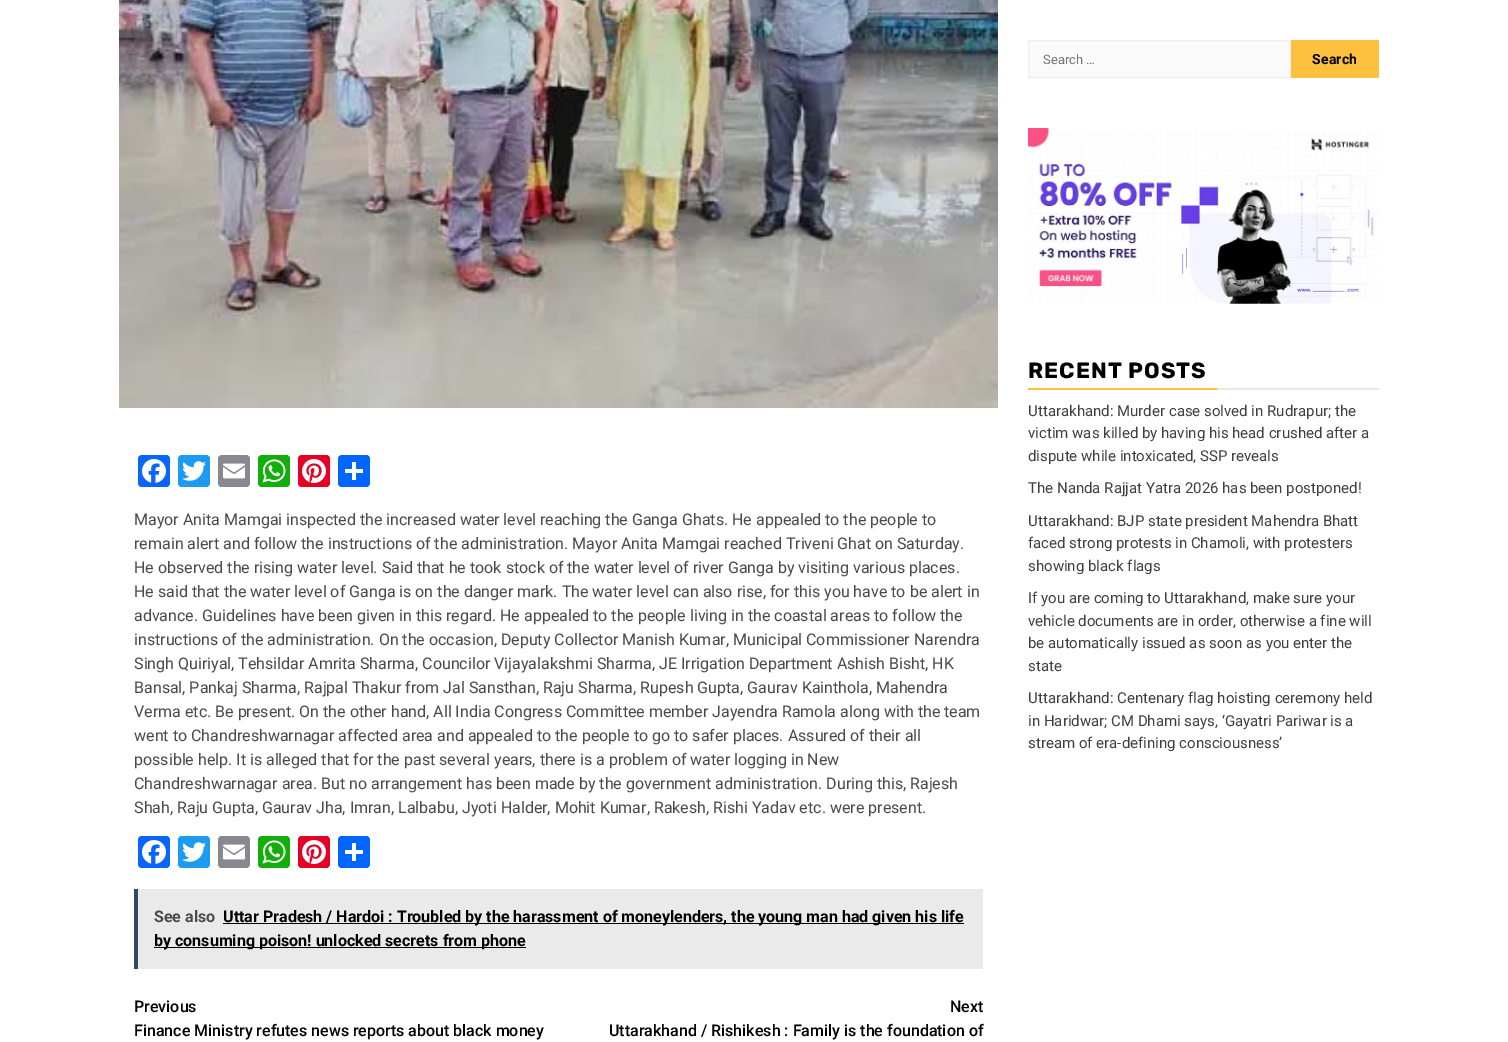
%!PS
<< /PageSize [1508 1042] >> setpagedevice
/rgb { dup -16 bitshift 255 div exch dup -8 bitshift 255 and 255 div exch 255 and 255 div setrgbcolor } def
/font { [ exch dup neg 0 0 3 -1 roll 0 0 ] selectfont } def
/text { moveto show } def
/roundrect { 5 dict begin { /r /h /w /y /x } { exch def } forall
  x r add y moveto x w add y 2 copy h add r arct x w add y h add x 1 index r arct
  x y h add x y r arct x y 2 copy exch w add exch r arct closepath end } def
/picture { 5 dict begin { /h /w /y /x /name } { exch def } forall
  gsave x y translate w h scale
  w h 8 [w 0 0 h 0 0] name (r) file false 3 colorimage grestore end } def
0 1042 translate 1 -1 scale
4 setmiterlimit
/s1 { /Roboto-Regular 16 font 16#4A4A4A rgb } def
/s2 { /Roboto-Bold 16 font 16#4A4A4A rgb } def
/s3 { /Roboto-Bold 16 font 16#000000 rgb } def
/s4 { /Roboto-Medium 16 font 16#000000 rgb } def
/s5 { /Roboto-Regular 13 font 16#757575 rgb } def
/s6 { /Roboto-Regular 15 font 16#404040 rgb } def
16#FFFFFF rgb
0 0 1508 1042 rectfill
(pic1.raw) 119 0 879 408 picture
16#0866FF rgb
138 455 32 32 4 roundrect fill
(pic2.raw) 142 459 24 24 picture
16#1D9BF0 rgb
178 455 32 32 4 roundrect fill
(pic3.raw) 182 461 24 20 picture
16#888990 rgb
218 455 32 32 4 roundrect fill
(pic4.raw) 223 463 22 16 picture
16#12AF0A rgb
258 455 32 32 4 roundrect fill
(pic5.raw) 262 459 24 24 picture
16#E60023 rgb
298 455 32 32 4 roundrect fill
(pic6.raw) 302 459 24 24 picture
16#0166FF rgb
338 455 32 32 4 roundrect fill
16#FFFFFF rgb
352 462 4 18 rectfill
345 469 18 4 rectfill
s1
(Mayor Anita Mamgai inspected the increased water level reaching the Ganga Ghats. He appealed to the people to) 134 525 text
(remain alert and follow the instructions of the administration. Mayor Anita Mamgai reached Triveni Ghat on Saturday.) 134 549 text
(He observed the rising water level. Said that he took stock of the water level of river Ganga by visiting various places.) 134 573 text
(He said that the water level of Ganga is on the danger mark. The water level can also rise, for this you have to be alert in) 134 597 text
(advance. Guidelines have been given in this regard. He appealed to the people living in the coastal areas to follow the) 134 621 text
(instructions of the administration. On the occasion, Deputy Collector Manish Kumar, Municipal Commissioner Narendra) 134 645 text
(Singh Quiriyal, Tehsildar Amrita Sharma, Councilor Vijayalakshmi Sharma, JE Irrigation Department Ashish Bisht, HK) 134 669 text
(Bansal, Pankaj Sharma, Rajpal Thakur from Jal Sansthan, Raju Sharma, Rupesh Gupta, Gaurav Kainthola, Mahendra) 134 693 text
(Verma etc. Be present. On the other hand, All India Congress Committee member Jayendra Ramola along with the team) 134 717 text
(went to Chandreshwarnagar affected area and appealed to the people to go to safer places. Assured of their all) 134 741 text
(possible help. It is alleged that for the past several years, there is a problem of water logging in New) 134 765 text
(Chandreshwarnagar area. But no arrangement has been made by the government administration. During this, Rajesh) 134 789 text
(Shah, Raju Gupta, Gaurav Jha, Imran, Lalbabu, Jyoti Halder, Mohit Kumar, Rakesh, Rishi Yadav etc. were present.) 134 813 text
16#0866FF rgb
138 836 32 32 4 roundrect fill
(pic2.raw) 142 840 24 24 picture
16#1D9BF0 rgb
178 836 32 32 4 roundrect fill
(pic3.raw) 182 842 24 20 picture
16#888990 rgb
218 836 32 32 4 roundrect fill
(pic4.raw) 223 844 22 16 picture
16#12AF0A rgb
258 836 32 32 4 roundrect fill
(pic5.raw) 262 840 24 24 picture
16#E60023 rgb
298 836 32 32 4 roundrect fill
(pic6.raw) 302 840 24 24 picture
16#0166FF rgb
338 836 32 32 4 roundrect fill
16#FFFFFF rgb
352 843 4 18 rectfill
345 850 18 4 rectfill
16#EAEAEA rgb
138 889 845 80 rectfill
16#34495E rgb
134 889 4 80 rectfill
s2
(See also) 154 922 text
16#000000 rgb
223 923 741 1 rectfill
(Uttar Pradesh / Hardoi : Troubled by the harassment of moneylenders, the young man had given his life) 223 922 text
154 947 372 1 rectfill
(by consuming poison! unlocked secrets from phone) 154 946 text
s4
(Previous) 134 1012 text
(Finance Ministry refutes news reports about black money) 134 1036 text
(Next) 950 1012 text
(Uttarakhand / Rishikesh : Family is the foundation of) 609 1036 text
16#FAFAFA rgb
1028.5 40.5 moveto 1290.5 40.5 lineto 1290.5 77.5 lineto 1028.5 77.5 lineto closepath gsave fill grestore
16#EEEEEE rgb
stroke
s5
(Search …) 1043 64 text
16#FFBF3F rgb
1291 40 88 38 rectfill
/Roboto-Bold 14 font
16#000000 rgb
1312 64 moveto 0.25 0 (Search) ashow
(pic7.raw) 1028 128 351 176 picture
16#FFBF3F rgb
1028 388 189 2 rectfill
/Rubik-Bold 22 font
16#000000 rgb
1028 378 moveto 1 0 (RECENT POSTS) ashow
16#E7E7E7 rgb
1217 388 162 2 rectfill
s6
(Uttarakhand: Murder case solved in Rudrapur; the) 1028 416 text
(victim was killed by having his head crushed after a) 1028 438 text
(dispute while intoxicated, SSP reveals) 1028 461 text
(The Nanda Rajjat Yatra 2026 has been postponed!) 1028 493 text
(Uttarakhand: BJP state president Mahendra Bhatt) 1028 526 text
(faced strong protests in Chamoli, with protesters) 1028 548 text
(showing black flags) 1028 571 text
(If you are coming to Uttarakhand, make sure your) 1028 603 text
(vehicle documents are in order, otherwise a fine will) 1028 626 text
(be automatically issued as soon as you enter the) 1028 648 text
(state) 1028 671 text
(Uttarakhand: Centenary flag hoisting ceremony held) 1028 703 text
(in Haridwar; CM Dhami says, ‘Gayatri Pariwar is a) 1028 726 text
(stream of era-defining consciousness’) 1028 748 text
showpage
